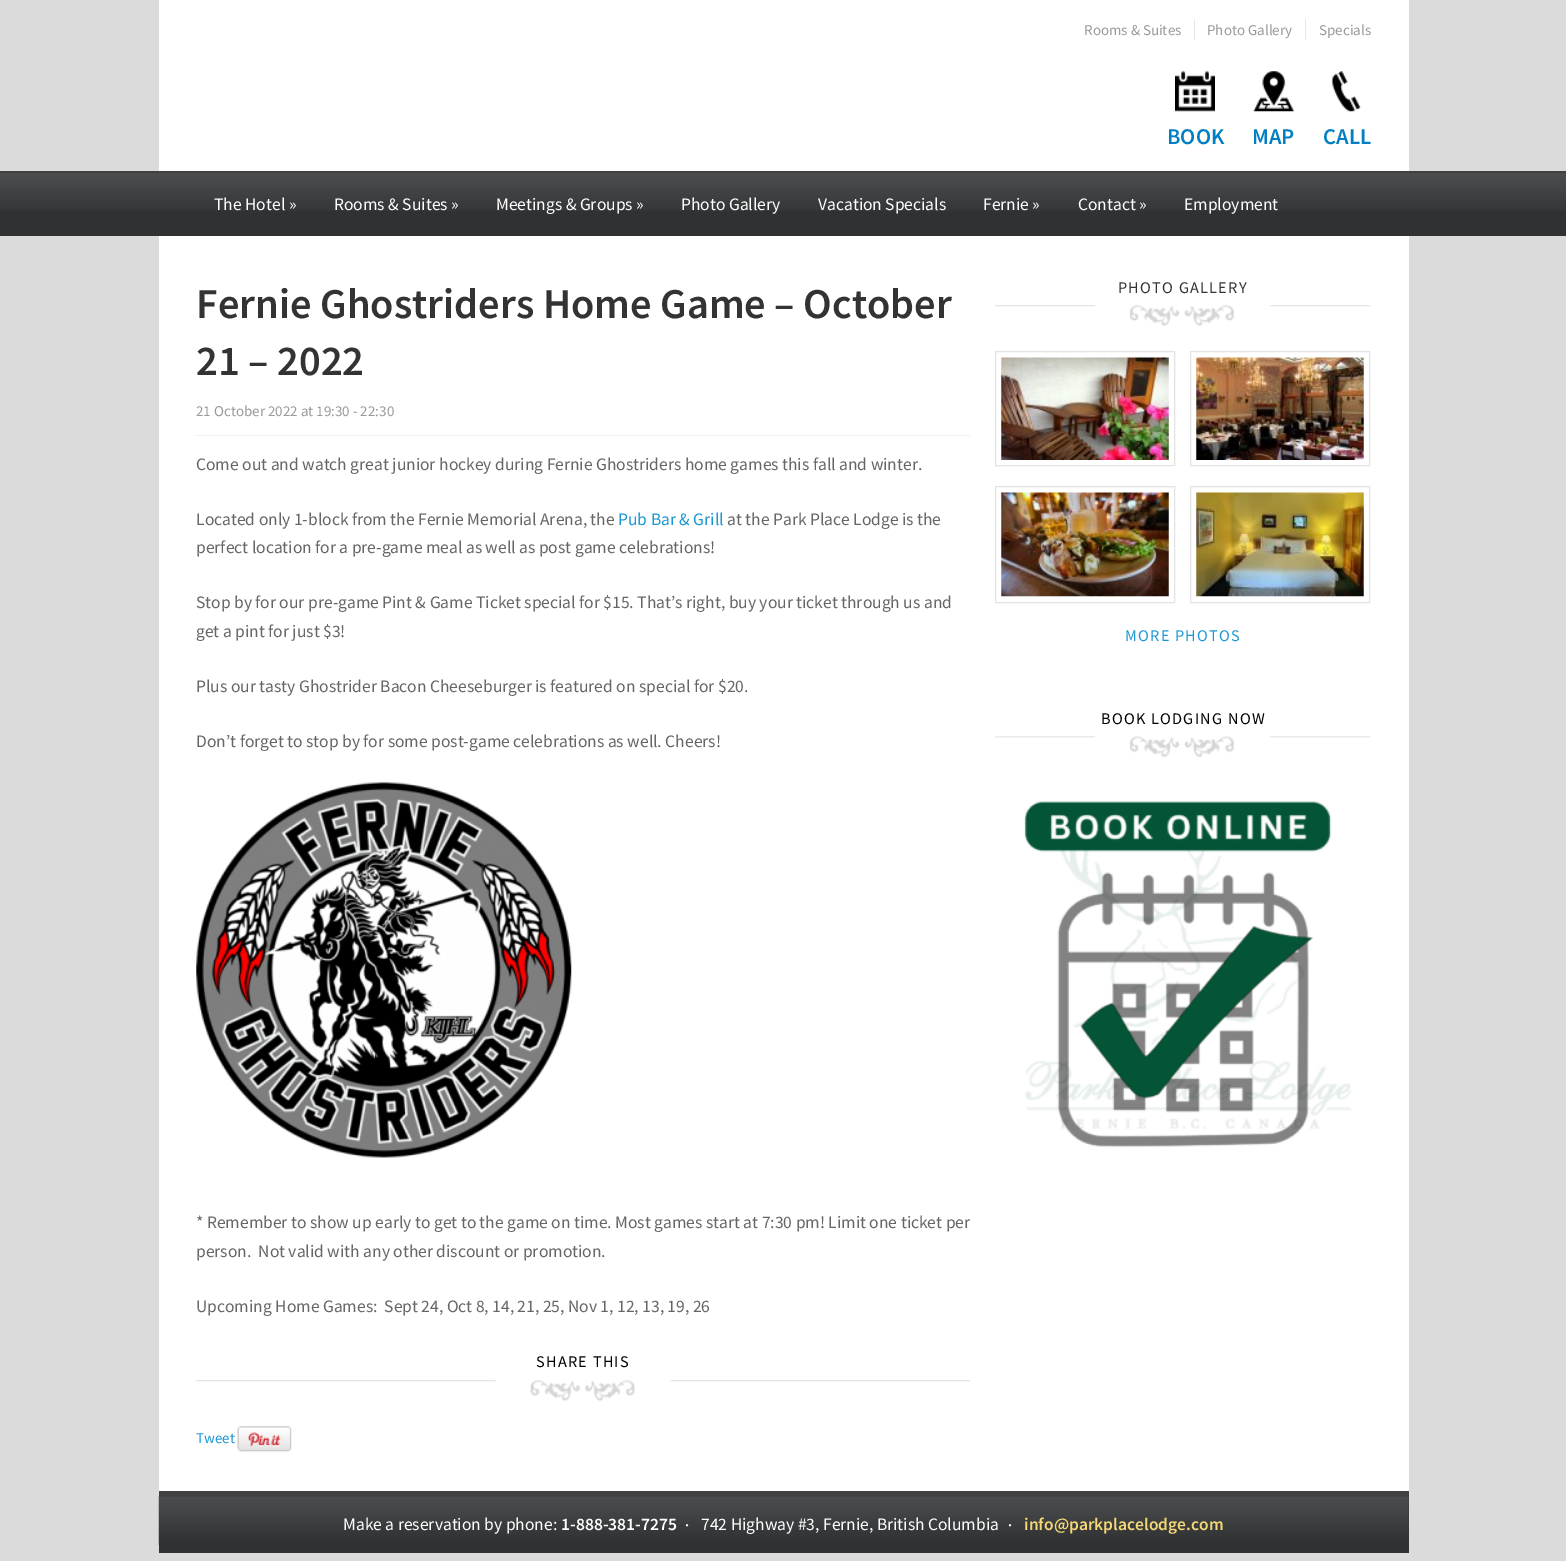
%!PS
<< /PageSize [1566 1561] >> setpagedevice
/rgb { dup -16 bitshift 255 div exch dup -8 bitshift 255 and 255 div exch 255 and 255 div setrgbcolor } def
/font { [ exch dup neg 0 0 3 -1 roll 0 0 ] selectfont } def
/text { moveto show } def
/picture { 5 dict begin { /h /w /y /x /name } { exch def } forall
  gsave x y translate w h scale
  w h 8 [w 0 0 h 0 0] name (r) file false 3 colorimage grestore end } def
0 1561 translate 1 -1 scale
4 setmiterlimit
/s1 { /SourceSansPro-Regular 15 font 16#999999 rgb } def
/s2 { /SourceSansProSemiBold-SemiBold 22.5 font 16#027EC2 rgb } def
/s3 { /SourceSansPro-Regular 17.5 font 16#FFFFFF rgb } def
/s4 { /SourceSansProSemiBold-SemiBold 42.5 font 16#333333 rgb } def
/s5 { /SourceSansPro-Regular 17.5 font 16#666666 rgb } def
/s6 { /SourceSansPro-Regular 17.5 font 16#1C97D4 rgb } def
/s7 { /SourceSansPro-Regular 15 font 16#1C97D4 rgb } def
/s8 { /SourceSansProSemiBold-SemiBold 17.5 font 16#FFFFFF rgb } def
/s9 { /SourceSansProSemiBold-SemiBold 15 font 16#FFFFFF rgb } def
/s10 { /SourceSansProSemiBold-SemiBold 17.5 font 16#F5D876 rgb } def
16#DBDBDB rgb
0 0 1566 1561 rectfill
16#FFFFFF rgb
159 0 1250 171 rectfill
s1
(Rooms & Suites) 1084 35 text
16#E7E7E7 rgb
1194 19 1 21 rectfill
s1
(Photo Gallery) 1207 35 text
16#E7E7E7 rgb
1305 19 1 21 rectfill
s1
(Specials) 1319 35 text
(pic1.raw) 1175 71 40 41 picture
s2
(BOOK) 1167 144 text
(pic2.raw) 1253 71 41 41 picture
(MAP) 1252 144 text
(pic3.raw) 1331 71 30 41 picture
(CALL) 1323 144 text
16#2F3133 rgb
0 172 1566 64 rectfill
(pic4.raw) 0 172 1566 39 picture
16#3F4142 rgb
0 171 1566 1 rectfill
s3
(The Hotel ») 214 210 text
(Rooms & Suites ») 334 210 text
(Meetings & Groups ») 496 210 text
(Photo Gallery) 681 210 text
(Vacation Specials) 818 210 text
(Fernie ») 983 210 text
(Contact ») 1078 210 text
(Employment) 1184 210 text
159 236 1250 1255 rectfill
16#3F4142 rgb
159 1491 1250 5 rectfill
s4
(Fernie Ghostriders Home Game – October) 196 318 text
(21 – 2022) 196 375 text
s1
(21 October 2022 at 19:30 - 22:30) 196 416 text
16#F1F1F1 rgb
196 435 774 1 rectfill
s5
(Come out and watch great junior hockey during Fernie Ghostriders home games this fall and winter.) 196 470 text
(Located only 1-block from the Fernie Memorial Arena, the) 196 525 text
s6
(Pub Bar & Grill) 618 525 text
s5
(at the Park Place Lodge is the) 727 525 text
(perfect location for a pre-game meal as well as post game celebrations!) 196 553 text
(Stop by for our pre-game Pint & Game Ticket special for $15. That’s right, buy your ticket through us and) 196 608 text
(get a pint for just $3!) 196 637 text
(Plus our tasty Ghostrider Bacon Cheeseburger is featured on special for $20.) 196 692 text
(Don’t forget to stop by for some post-game celebrations as well. Cheers!) 196 747 text
(pic5.raw) 196 782 376 376 picture
(* Remember to show up early to get to the game on time. Most games start at 7:30 pm! Limit one ticket per) 196 1228 text
(person.  Not valid with any other discount or promotion.) 196 1257 text
(Upcoming Home Games:  Sept 24, Oct 8, 14, 21, 25, Nov 1, 12, 13, 19, 26) 196 1312 text
(pic6.raw) 196 1380 774 22 picture
/SourceSansPro-Regular 16.25 font
16#000000 rgb
536 1367 moveto 1.25 0 (SHARE THIS) ashow
s7
(Tweet) 196 1443 text
(pic7.raw) 237 1426 55 26 picture
(pic8.raw) 995 305 375 22 picture
/SourceSansPro-Regular 16.25 font
16#333333 rgb
1118 293 moveto 1.25 0 (PHOTO GALLERY) ashow
16#E3E3E3 rgb
995.5 351.5 179 114 rectstroke
(pic9.raw) 1001 357 168 103 picture
1190.5 351.5 179 114 rectstroke
(pic10.raw) 1196 357 168 103 picture
995.5 486.5 179 116 rectstroke
(pic11.raw) 1001 492 168 105 picture
1190.5 486.5 179 116 rectstroke
(pic12.raw) 1196 492 168 105 picture
16#1C97D4 rgb
1125 641 moveto 1.25 0 (MORE PHOTOS) ashow
(pic13.raw) 995 736 375 22 picture
16#000000 rgb
1101 724 moveto 1.25 0 (BOOK LODGING NOW) ashow
(pic14.raw) 1024 801 328 347 picture
16#2F3133 rgb
159 1496 1250 57 rectfill
(pic15.raw) 158 1496 1251 49 picture
s3
(Make a reservation by phone:) 343 1530 text
s8
(1-888-381-7275) 561 1530 text
s9
(·) 685 1530 text
s3
(742 Highway #3, Fernie, British Columbia) 701 1530 text
s9
(·) 1008 1530 text
s10
(info@parkplacelodge.com) 1024 1530 text
showpage
